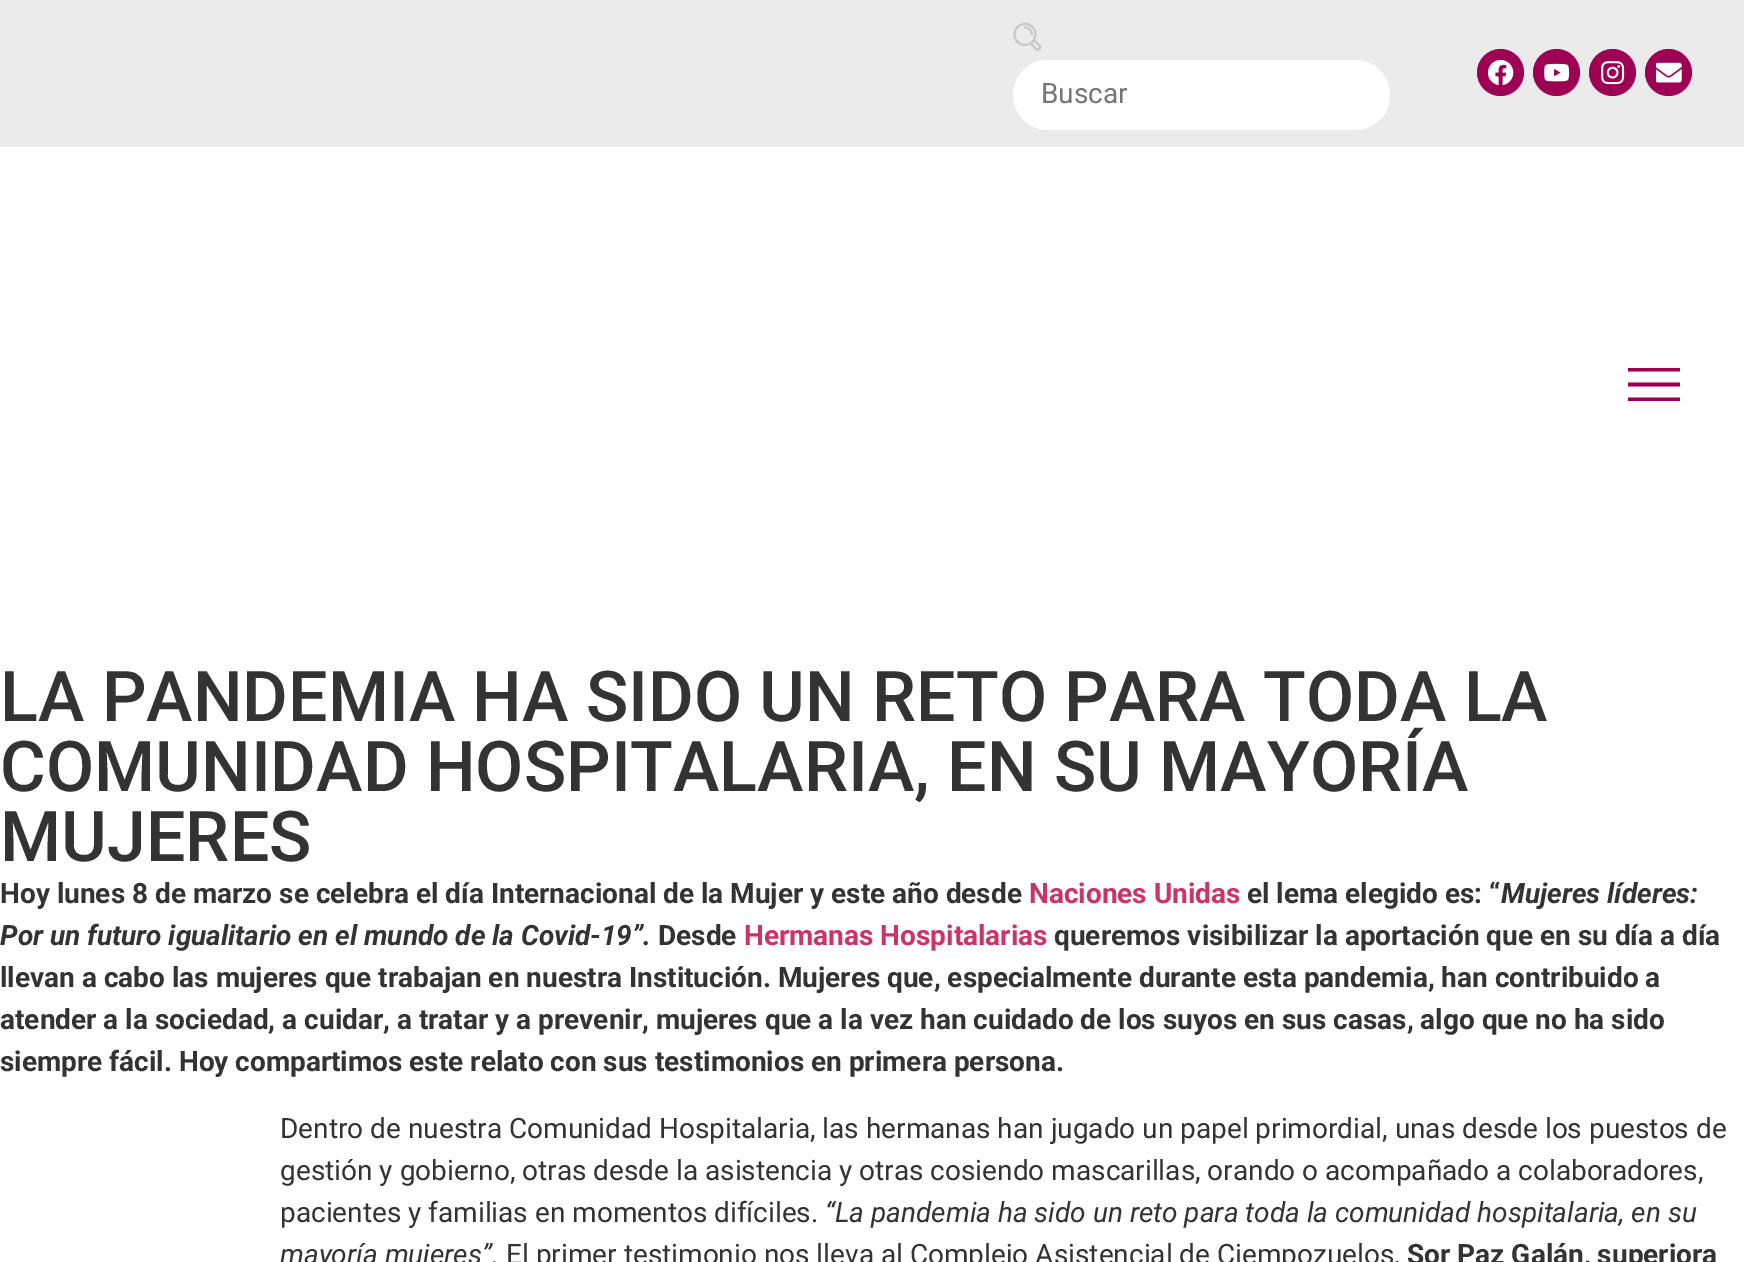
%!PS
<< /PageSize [1744 1262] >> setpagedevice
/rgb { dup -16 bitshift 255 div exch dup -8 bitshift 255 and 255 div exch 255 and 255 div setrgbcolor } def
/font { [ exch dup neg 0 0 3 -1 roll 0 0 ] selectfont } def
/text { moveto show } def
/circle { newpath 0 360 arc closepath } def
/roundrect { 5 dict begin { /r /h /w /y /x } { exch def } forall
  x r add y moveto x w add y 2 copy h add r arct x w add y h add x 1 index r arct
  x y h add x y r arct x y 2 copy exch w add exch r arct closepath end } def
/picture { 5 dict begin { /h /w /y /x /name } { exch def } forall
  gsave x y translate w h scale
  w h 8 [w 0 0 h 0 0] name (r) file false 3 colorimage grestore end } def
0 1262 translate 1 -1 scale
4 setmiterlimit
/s1 { /Roboto-Regular 28 font 16#757575 rgb } def
/s2 { /Roboto-Medium 70 font 16#333333 rgb } def
/s3 { /Roboto-Bold 28 font 16#333333 rgb } def
/s4 { /Roboto-Bold 28 font 16#CC3366 rgb } def
/s5 { /Roboto-BoldItalic 28 font 16#333333 rgb } def
/s6 { /Roboto-Regular 28 font 16#333333 rgb } def
/s7 { /Roboto-Italic 28 font 16#333333 rgb } def
16#FFFFFF rgb
0 0 1744 1262 rectfill
16#EBEBEB rgb
0 0 1744 147 rectfill
(pic1.raw) 1013 23 28 28 picture
16#FFFFFF rgb
1013 60 377 70 35 roundrect fill
s1
(Buscar) 1041 103 text
16#9E0154 rgb
1500.5 72.5 23.5 circle fill
(pic2.raw) 1488 60 26 26 picture
1556.5 72.5 23.5 circle fill
(pic3.raw) 1544 63 26 19 picture
1612.5 72.5 23.5 circle fill
(pic4.raw) 1601 61 24 24 picture
1668.5 72.5 23.5 circle fill
(pic5.raw) 1656 62 26 21 picture
gsave
1628 368 52 33 rectclip
16#9E0054 rgb
3.7 setlinewidth
1627.5 369.5 moveto 1680 369.5 lineto 1627.5 384.5 moveto 1680 384.5 lineto 1627.5 399.5 moveto 1680 399.5 lineto stroke
grestore
s2
(LA PANDEMIA HA SIDO UN RETO PARA TODA LA) 0 721 text
(COMUNIDAD HOSPITALARIA, EN SU MAYORÍA) 0 791 text
(MUJERES) 0 861 text
s3
(Hoy lunes 8 de marzo se celebra el día Internacional de la Mujer y este año desde) 0 903 text
s4
(Naciones Unidas) 1029 903 text
s3
(el lema elegido es: “) 1247 903 text
s5
(Mujeres líderes:) 1501 903 text
(Por un futuro igualitario en el mundo de la Covid-19”.) 0 945 text
s3
(Desde) 658 945 text
s4
(Hermanas Hospitalarias) 744 945 text
s3
(queremos visibilizar la aportación que en su día a día) 1054 945 text
(llevan a cabo las mujeres que trabajan en nuestra Institución. Mujeres que, especialmente durante esta pandemia, han contribuido a) 0 987 text
(atender a la sociedad, a cuidar, a tratar y a prevenir, mujeres que a la vez han cuidado de los suyos en sus casas, algo que no ha sido) 0 1029 text
(siempre fácil. Hoy compartimos este relato con sus testimonios en primera persona.) 0 1071 text
s6
(Dentro de nuestra Comunidad Hospitalaria, las hermanas han jugado un papel primordial, unas desde los puestos de) 280 1138 text
(gestión y gobierno, otras desde la asistencia y otras cosiendo mascarillas, orando o acompañado a colaboradores,) 280 1180 text
(pacientes y familias en momentos difíciles.) 280 1222 text
s7
(“La pandemia ha sido un reto para toda la comunidad hospitalaria, en su) 825 1222 text
(mayoría mujeres”.) 280 1264 text
s6
(El primer testimonio nos lleva al Complejo Asistencial de Ciempozuelos,) 506 1264 text
s3
(Sor Paz Galán, superiora) 1407 1264 text
showpage
